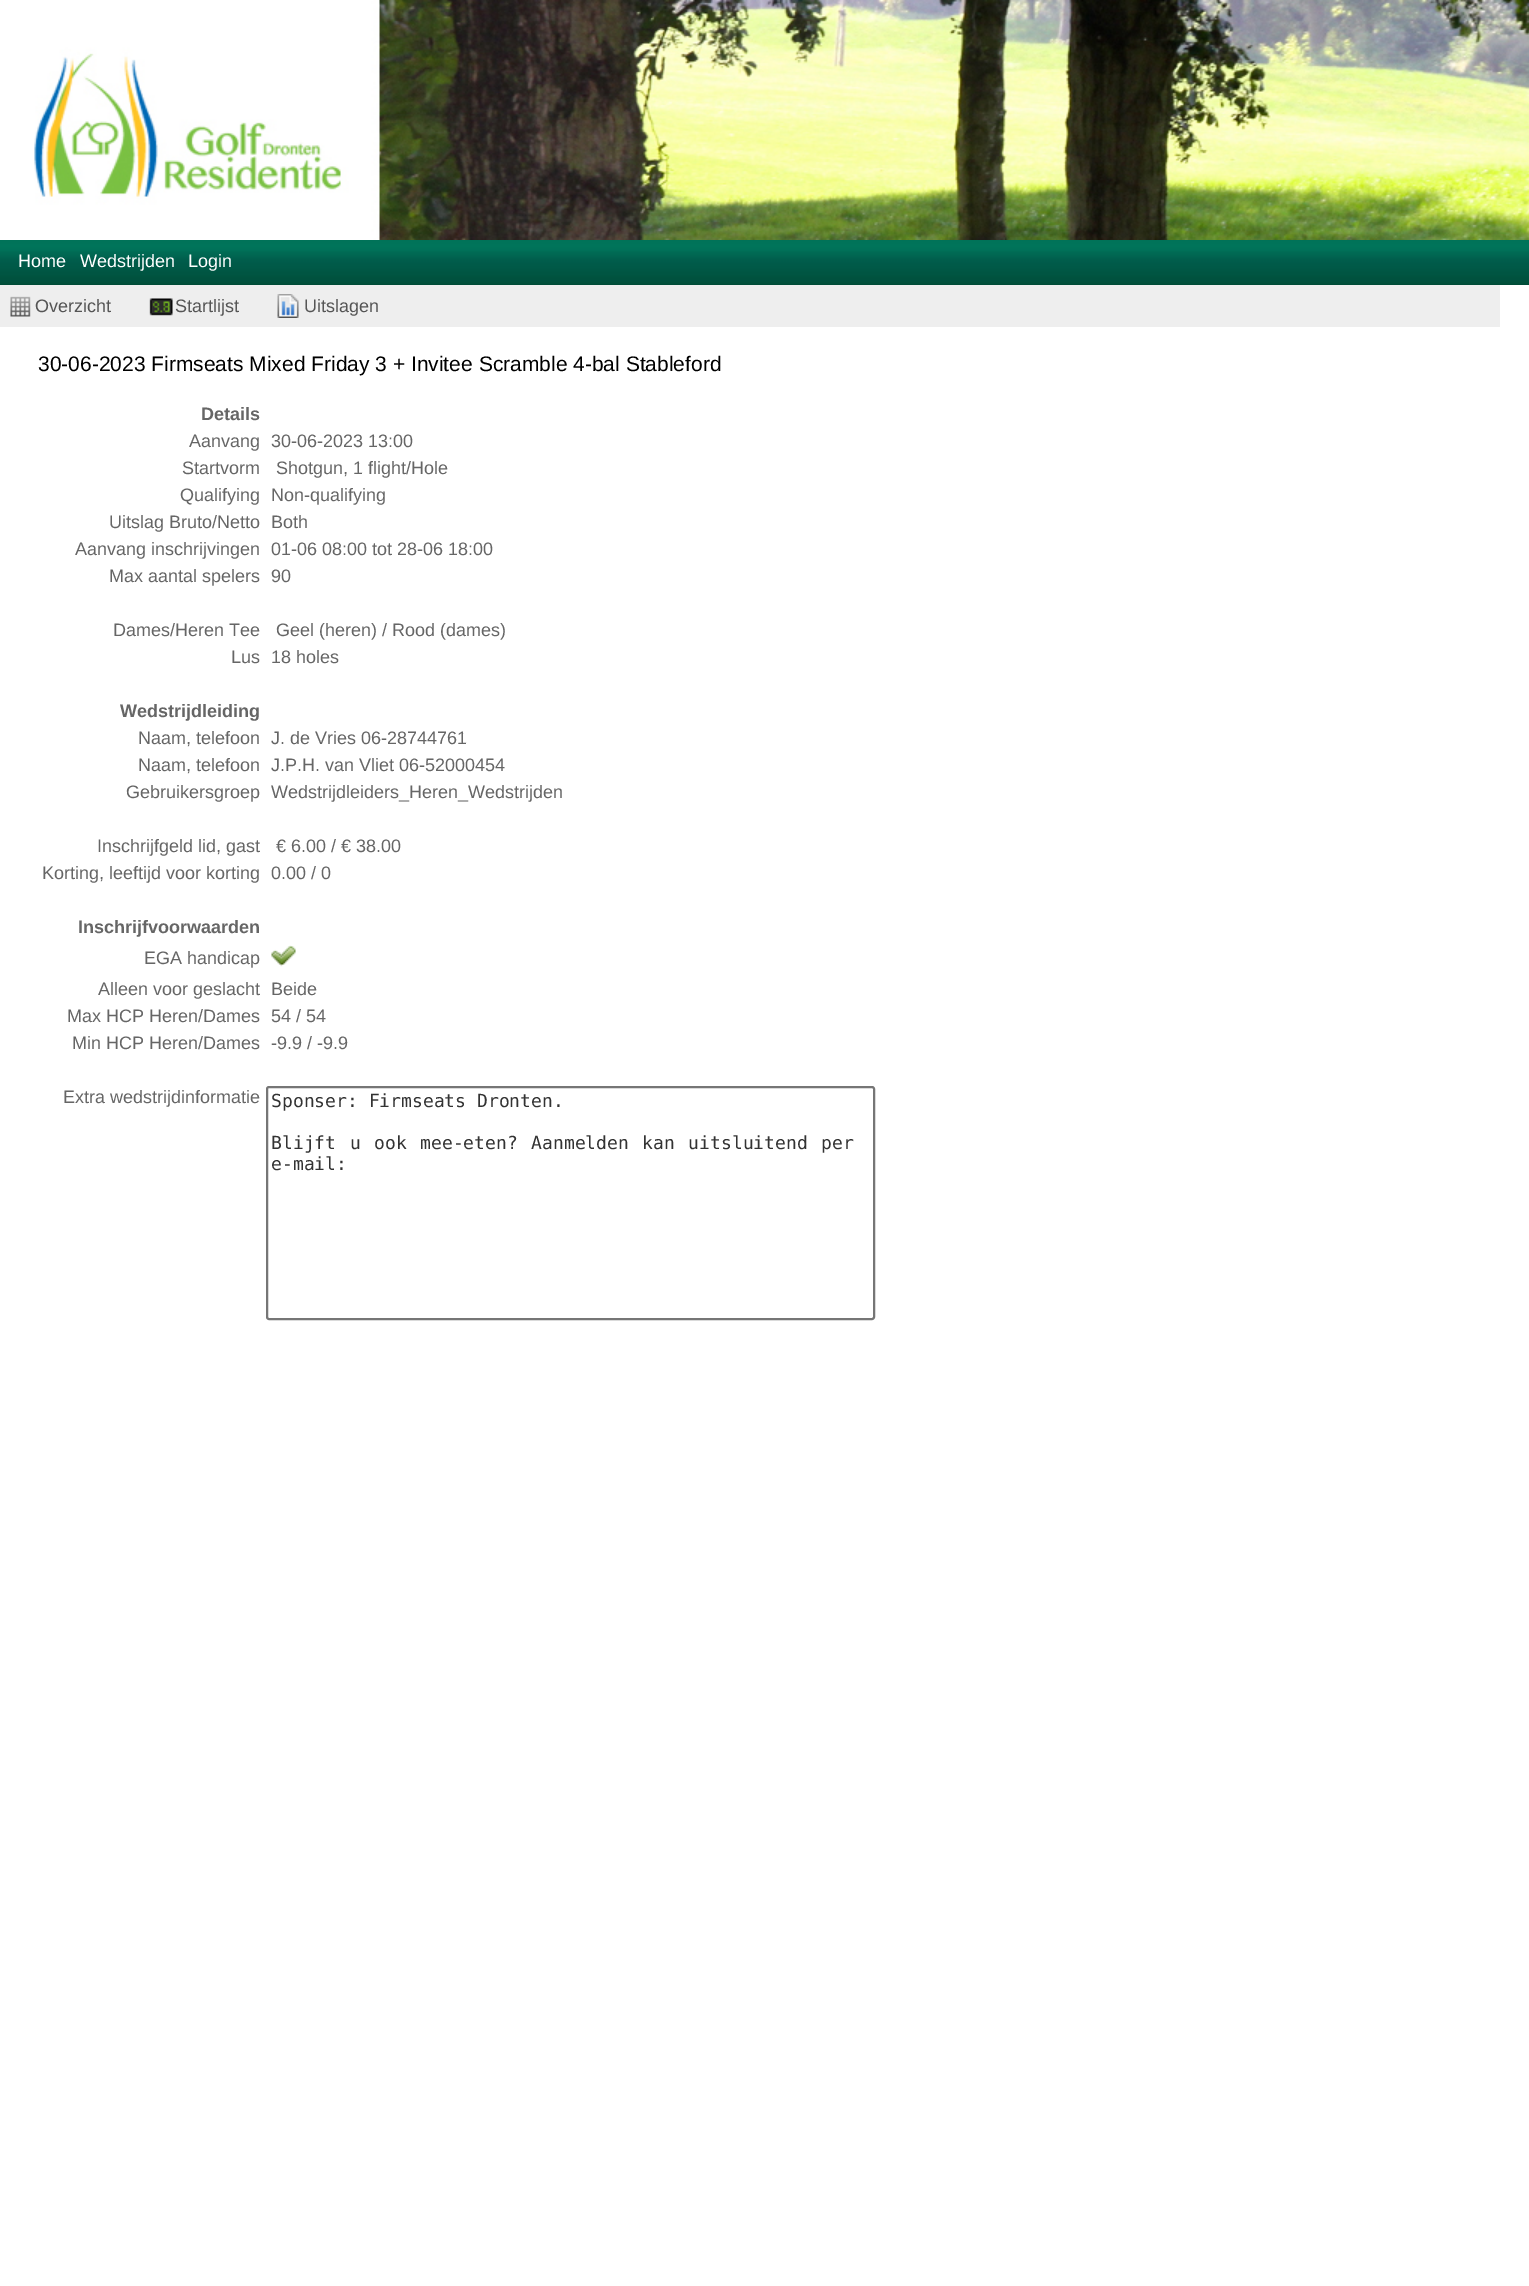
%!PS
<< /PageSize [1529 2286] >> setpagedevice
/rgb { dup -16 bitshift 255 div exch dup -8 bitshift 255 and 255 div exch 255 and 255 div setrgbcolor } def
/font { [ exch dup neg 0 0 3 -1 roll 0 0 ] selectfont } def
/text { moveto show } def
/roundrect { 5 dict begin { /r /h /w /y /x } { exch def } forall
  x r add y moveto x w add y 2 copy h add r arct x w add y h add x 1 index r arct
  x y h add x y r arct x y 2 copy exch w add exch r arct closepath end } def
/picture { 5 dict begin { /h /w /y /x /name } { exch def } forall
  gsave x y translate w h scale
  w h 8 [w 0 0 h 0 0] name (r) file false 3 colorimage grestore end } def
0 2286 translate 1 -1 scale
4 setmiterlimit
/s1 { /LiberationSans-Regular 18 font 16#FFFFFF rgb } def
/s2 { /LiberationSans-Regular 18 font 16#555555 rgb } def
/s3 { /LiberationSans-Regular 21 font 16#000000 rgb } def
/s4 { /LiberationSans-Bold 18 font 16#666666 rgb } def
/s5 { /LiberationSans-Regular 18 font 16#666666 rgb } def
/s6 { /DejaVuSansMono-Regular 18 font 16#333333 rgb } def
16#FFFFFF rgb
0 0 1529 2286 rectfill
(pic1.raw) 34 0 1495 240 picture
(pic2.raw) 0 240 1529 45 picture
s1
(Home) 18 267 text
(Wedstrijden) 80 267 text
(Login) 188 267 text
16#EEEEEE rgb
0 285 1500 42 rectfill
(pic3.raw) 10 296 21 21 picture
s2
(Overzicht) 35 312 text
(pic4.raw) 149 298 24 18 picture
(Startlijst) 175 312 text
(pic5.raw) 277 294 22 24 picture
(Uitslagen) 304 312 text
s3
(30-06-2023 Firmseats Mixed Friday 3 + Invitee Scramble 4-bal Stableford) 38 371 text
s4
(Details) 201 420 text
s5
(Aanvang) 189 447 text
(30-06-2023 13:00) 271 447 text
(Startvorm) 182 474 text
(Shotgun, 1 flight/Hole) 276 474 text
(Qualifying) 180 501 text
(Non-qualifying) 271 501 text
(Uitslag Bruto/Netto) 109 528 text
(Both) 271 528 text
(Aanvang inschrijvingen) 75 555 text
(01-06 08:00 tot 28-06 18:00) 271 555 text
(Max aantal spelers) 109 582 text
(90) 271 582 text
(Dames/Heren Tee) 113 636 text
(Geel \(heren\) / Rood \(dames\)) 276 636 text
(Lus) 231 663 text
(18 holes) 271 663 text
s4
(Wedstrijdleiding) 120 717 text
s5
(Naam, telefoon) 138 744 text
(J. de Vries 06-28744761) 271 744 text
(Naam, telefoon) 138 771 text
(J.P.H. van Vliet 06-52000454) 271 771 text
(Gebruikersgroep) 126 798 text
(Wedstrijdleiders_Heren_Wedstrijden) 271 798 text
(Inschrijfgeld lid, gast) 97 852 text
(€ 6.00 / € 38.00) 276 852 text
(Korting, leeftijd voor korting) 42 879 text
(0.00 / 0) 271 879 text
s4
(Inschrijfvoorwaarden) 78 933 text
s5
(EGA handicap) 144 964 text
(pic6.raw) 271 945 25 22 picture
(Alleen voor geslacht) 98 995 text
(Beide) 271 995 text
(Max HCP Heren/Dames) 67 1022 text
(54 / 54) 271 1022 text
(Min HCP Heren/Dames) 72 1049 text
(-9.9 / -9.9) 271 1049 text
(Extra wedstrijdinformatie) 63 1103 text
16#767676 rgb
2 setlinewidth
267 1087 607 232 2 roundrect stroke
s6
(Sponser: Firmseats Dronten.) 271 1107 text
271 1149 moveto 2.75 0 32 (Blijft u ook mee-eten? Aanmelden kan uitsluitend per) widthshow
(e-mail:) 271 1170 text
showpage
